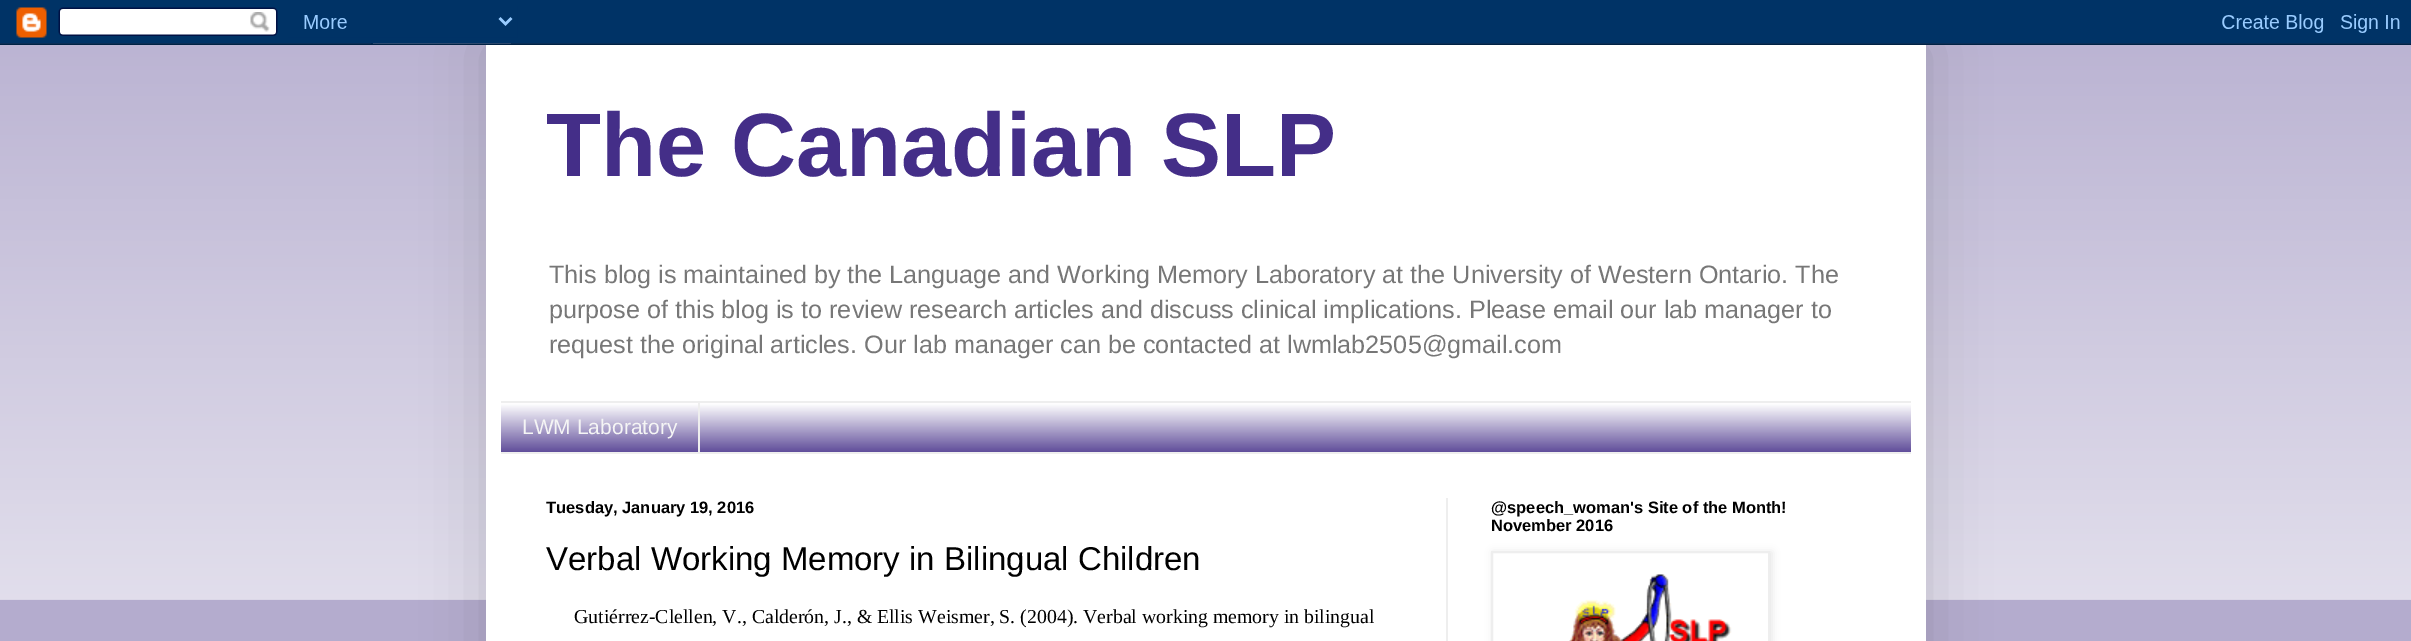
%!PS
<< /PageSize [2411 641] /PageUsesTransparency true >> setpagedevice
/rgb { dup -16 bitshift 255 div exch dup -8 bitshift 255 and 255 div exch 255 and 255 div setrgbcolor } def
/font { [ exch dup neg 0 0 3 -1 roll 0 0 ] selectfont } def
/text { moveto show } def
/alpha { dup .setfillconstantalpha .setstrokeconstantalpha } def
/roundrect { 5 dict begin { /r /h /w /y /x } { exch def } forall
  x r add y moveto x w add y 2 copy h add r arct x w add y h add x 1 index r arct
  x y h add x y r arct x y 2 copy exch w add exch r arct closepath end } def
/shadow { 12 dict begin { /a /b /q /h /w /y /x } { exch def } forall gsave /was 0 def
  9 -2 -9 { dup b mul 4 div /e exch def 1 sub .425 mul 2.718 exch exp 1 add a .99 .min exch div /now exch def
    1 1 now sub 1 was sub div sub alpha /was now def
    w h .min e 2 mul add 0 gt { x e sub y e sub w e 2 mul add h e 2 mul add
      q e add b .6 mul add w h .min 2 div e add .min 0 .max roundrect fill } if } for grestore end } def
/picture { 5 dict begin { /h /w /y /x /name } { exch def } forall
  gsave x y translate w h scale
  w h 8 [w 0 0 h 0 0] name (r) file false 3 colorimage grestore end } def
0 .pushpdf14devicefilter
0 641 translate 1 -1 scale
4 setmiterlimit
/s1 { /LiberationSans-Bold 90 font 16#442E88 rgb } def
/s2 { /LiberationSans-Regular 25.2 font 16#777777 rgb } def
/s3 { /LiberationSans-Regular 21 font 16#F5F5F5 rgb } def
/s4 { /LiberationSans-Bold 16.5 font 16#000000 rgb } def
/s5 { /LiberationSans-Regular 33 font 16#000000 rgb } def
/s6 { /LiberationSerif-Regular 19.8 font 16#000000 rgb } def
16#B4ACCE rgb
0 0 2411 641 rectfill
(pic2.raw) 0 43 2411 557 picture
16#000000 rgb
486 45 1440 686 0 30 0.15 shadow
(pic1.raw) 0 0 2411 45 picture
16#FFFFFF rgb
486 45 1440 596 rectfill
s1
(The Canadian SLP) 546 176 text
s2
(This blog is maintained by the Language and Working Memory Laboratory at the University of Western Ontario. The) 549 283 text
(purpose of this blog is to review research articles and discuss clinical implications. Please email our lab manager to) 549 318 text
(request the original articles. Our lab manager can be contacted at lwmlab2505@gmail.com) 549 353 text
16#442E88 rgb
501 403 1410 49 rectfill
(pic3.raw) 501 403 1410 49 picture
16#EEEEEE rgb
501 401 1410 2 rectfill
501 452 1410 2 rectfill
698 402 2 50 rectfill
s3
(LWM Laboratory) 522 434 text
16#EEEEEE rgb
1446 498 2 143 rectfill
s4
(Tuesday, January 19, 2016) 546 513 text
s5
(Verbal Working Memory in Bilingual Children) 546 570 text
s6
(Gutiérrez-Clellen, V., Calderón, J., & Ellis Weismer, S. \(2004\). Verbal working memory in bilingual) 574 623 text
s4
(@speech_woman's Site of the Month!) 1491 513 text
(November 2016) 1491 531 text
gsave
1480 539 moveto 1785 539 lineto 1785 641 lineto 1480 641 lineto closepath 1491 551 moveto 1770 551 lineto 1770 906 lineto 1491 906 lineto closepath eoclip newpath
1493 552 279 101 0 4 0.1 shadow
grestore
16#EEEEEE rgb
2 setlinewidth
1492 552 277 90 rectstroke
(pic4.raw) 1569 574 163 67 picture
.poppdf14devicefilter showpage
